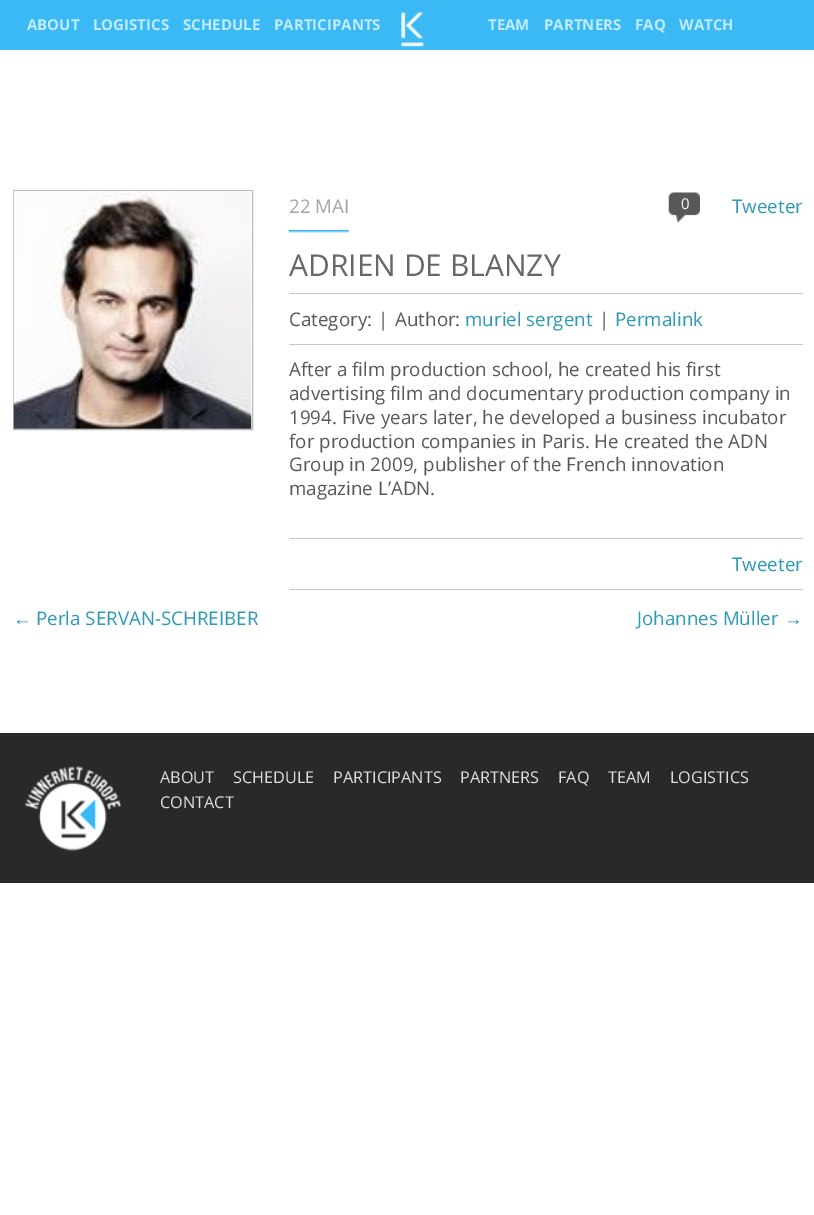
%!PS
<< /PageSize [814 1215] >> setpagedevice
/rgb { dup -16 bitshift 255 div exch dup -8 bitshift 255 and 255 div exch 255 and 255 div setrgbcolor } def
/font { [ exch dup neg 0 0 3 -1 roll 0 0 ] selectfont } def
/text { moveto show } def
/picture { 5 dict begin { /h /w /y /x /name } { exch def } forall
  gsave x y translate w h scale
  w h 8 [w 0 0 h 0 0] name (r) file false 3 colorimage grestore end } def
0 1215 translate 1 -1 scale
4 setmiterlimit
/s1 { /OpenSans-Bold 15 font 16#C1EBFF rgb } def
/s2 { /OpenSans-Regular 18.75 font 16#A5A5A5 rgb } def
/s3 { /OpenSans-Regular 15 font 16#FFFFFF rgb } def
/s4 { /OpenSans-Regular 18.75 font 16#2E9AB9 rgb } def
/s5 { /OpenSans-Regular 30 font 16#676767 rgb } def
/s6 { /OpenSans-Regular 18.75 font 16#595959 rgb } def
/s7 { /LiberationSans-Regular 18.75 font 16#2E9AB9 rgb } def
/s8 { /OpenSans-Regular 16.25 font 16#E0E0E0 rgb } def
16#FFFFFF rgb
0 0 814 1215 rectfill
16#3AB9F4 rgb
0 0 814 50 rectfill
s1
(ABOUT) 27 30 text
(LOGISTICS) 93 30 text
(SCHEDULE) 183 30 text
(PARTICIPANTS) 274 30 text
(pic1.raw) 401 12 23 35 picture
(TEAM) 488 30 text
(PARTNERS) 544 30 text
(FAQ) 635 30 text
(WATCH) 679 30 text
16#BBBBBB rgb
13.5 190.5 239 239 rectstroke
(pic2.raw) 13 191 239 238 picture
(pic3.raw) 288 230 61 3 picture
s2
(22 MAI) 289 213 text
(pic4.raw) 668 192 32 31 picture
s3
(0) 681 209 text
s4
(Tweeter) 732 213 text
s5
(ADRIEN DE BLANZY) 289 276 text
16#C9C9C9 rgb
289 293 514 1 rectfill
289 344 514 1 rectfill
s6
(Category:) 289 326 text
(|) 378 326 text
(Author:) 395 326 text
s4
(muriel sergent) 465 326 text
s6
(|) 599 326 text
s4
(Permalink) 615 326 text
s6
(After a film production school, he created his first) 289 376 text
(advertising film and documentary production company in) 289 400 text
(1994. Five years later, he developed a business incubator) 289 424 text
(for production companies in Paris. He created the ADN) 289 448 text
(Group in 2009, publisher of the French innovation) 289 471 text
(magazine L’ADN.) 289 495 text
16#C9C9C9 rgb
289 538 514 1 rectfill
289 589 514 1 rectfill
s4
(Tweeter) 732 571 text
s7
(←) 13 625 text
s4
(Perla SERVAN-SCHREIBER) 36 625 text
(Johannes Müller) 637 625 text
s7
(→) 784 625 text
16#292929 rgb
0 733 814 150 rectfill
(pic5.raw) 24 766 98 86 picture
s8
(ABOUT) 160 783 text
(SCHEDULE) 233 783 text
(PARTICIPANTS) 333 783 text
(PARTNERS) 460 783 text
(FAQ) 558 783 text
(TEAM) 608 783 text
(LOGISTICS) 670 783 text
(CONTACT) 160 808 text
showpage
